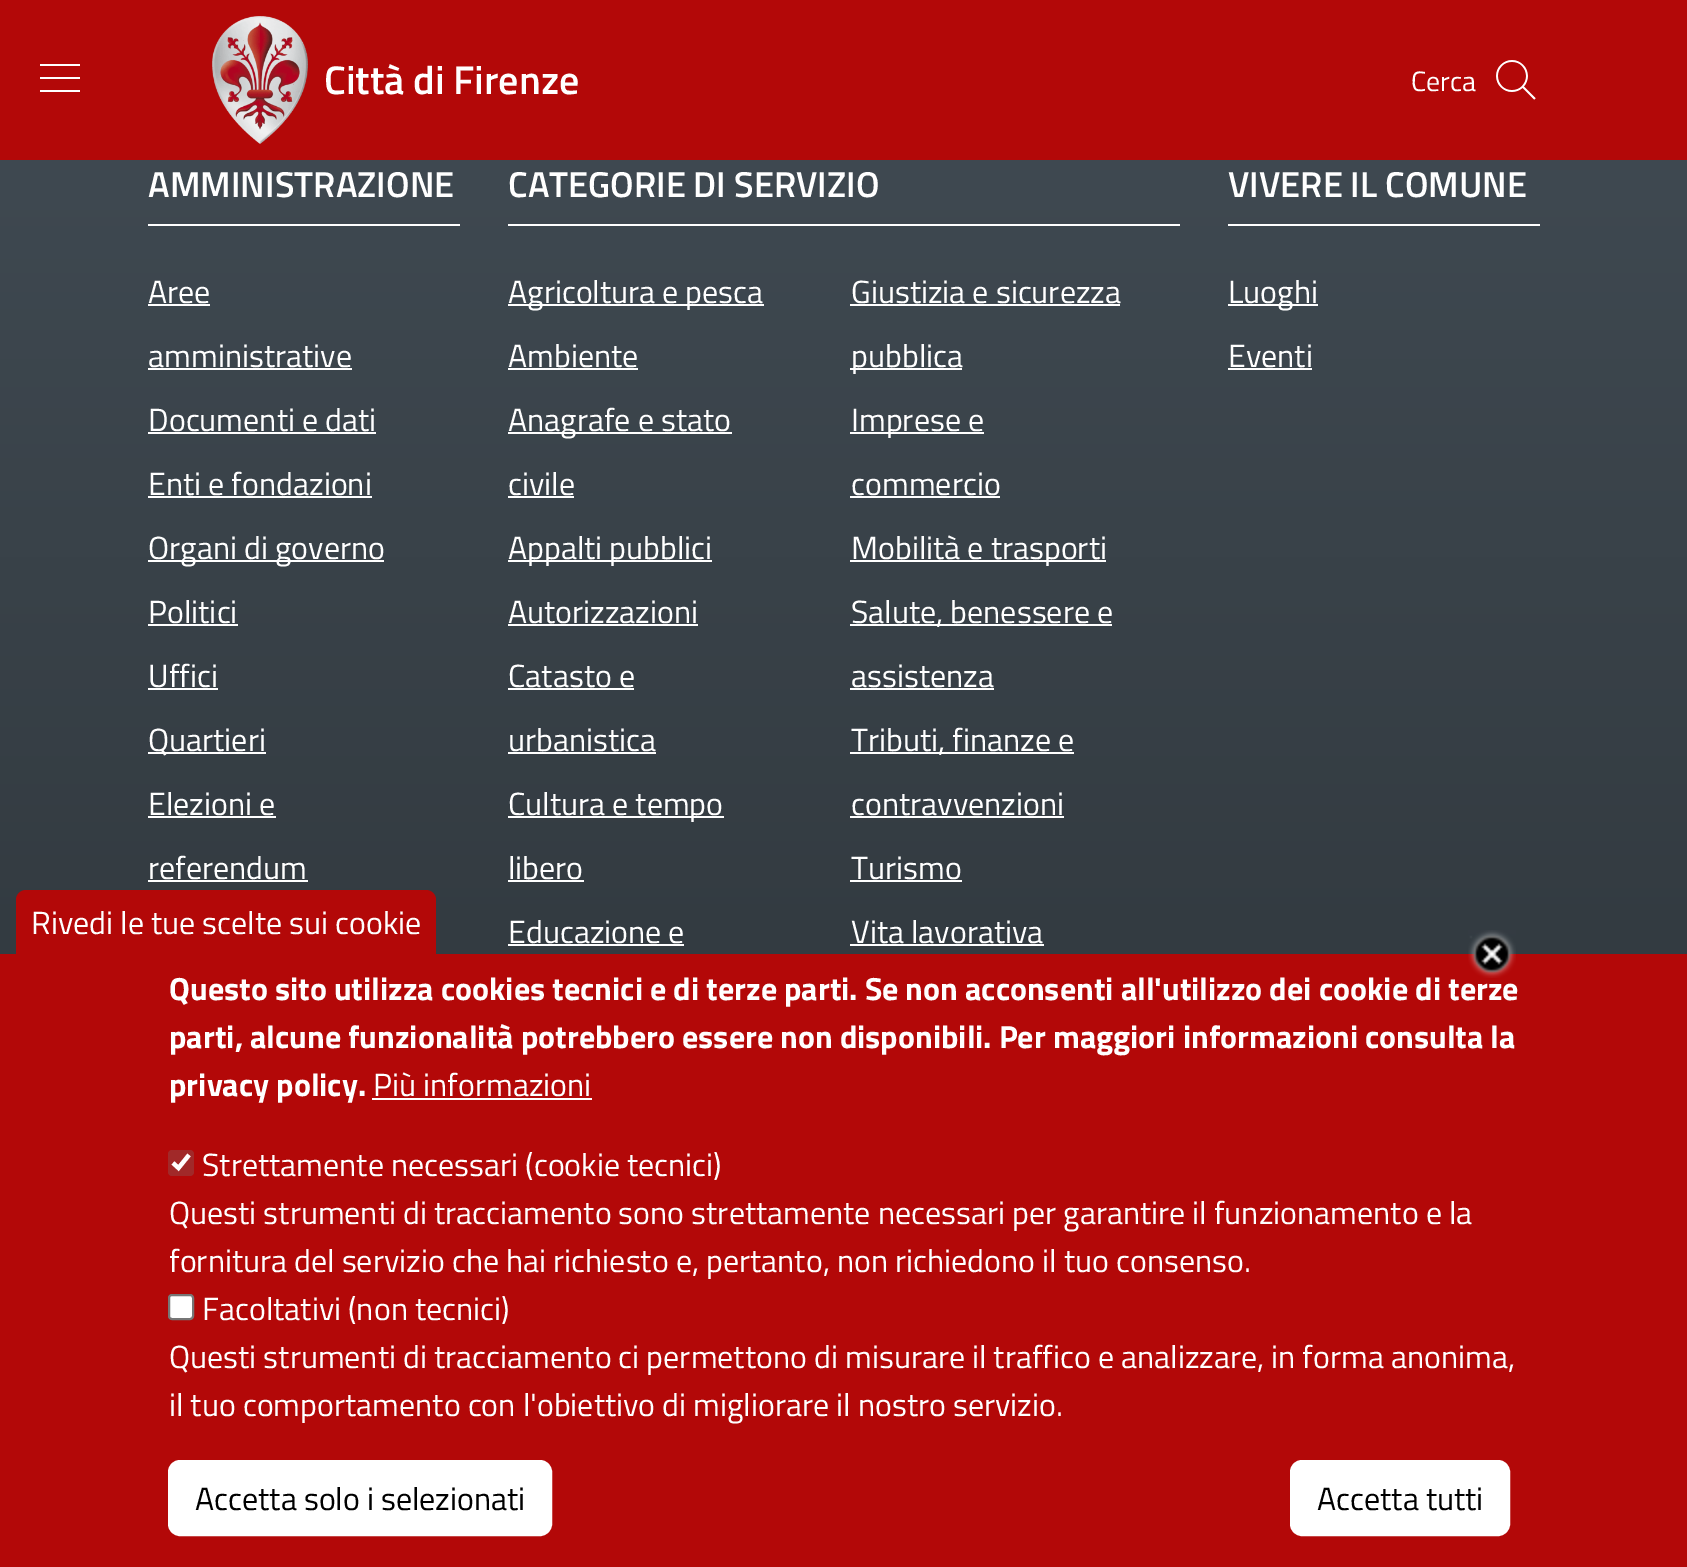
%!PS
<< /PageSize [1687 1567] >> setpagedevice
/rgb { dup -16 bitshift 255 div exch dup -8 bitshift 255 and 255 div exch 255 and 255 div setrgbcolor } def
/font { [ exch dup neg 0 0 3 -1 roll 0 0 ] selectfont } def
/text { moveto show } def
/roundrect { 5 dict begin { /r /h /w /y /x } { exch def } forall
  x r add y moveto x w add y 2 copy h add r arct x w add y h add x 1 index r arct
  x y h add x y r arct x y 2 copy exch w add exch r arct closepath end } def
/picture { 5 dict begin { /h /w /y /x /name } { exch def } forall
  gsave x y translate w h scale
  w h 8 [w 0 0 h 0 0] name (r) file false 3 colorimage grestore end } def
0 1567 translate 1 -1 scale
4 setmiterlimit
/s1 { /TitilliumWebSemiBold-SemiBold 40 font 16#FFFFFF rgb } def
/s2 { /TitilliumWeb-Regular 28 font 16#FFFFFF rgb } def
/s3 { /TitilliumWebSemiBold-SemiBold 36 font 16#FFFFFF rgb } def
/s4 { /TitilliumWeb-Regular 32 font 16#FFFFFF rgb } def
/s5 { /TitilliumWeb-Bold 32 font 16#FFFFFF rgb } def
/s6 { /TitilliumWeb-Regular 32 font 16#000000 rgb } def
16#FFFFFF rgb
0 0 1687 1567 rectfill
16#B30808 rgb
0 0 1687 160 rectfill
(pic1.raw) 40 64 40 28 picture
(pic2.raw) 212 16 96 128 picture
s1
(Città di Firenze) 324 94 text
s2
(Cerca) 1411 91 text
(pic3.raw) 1496 60 40 40 picture
gsave 0 160 moveto 1687 160 lineto 1687 954 lineto 0 954 lineto closepath clip newpath
<< /ShadingType 2 /ColorSpace /DeviceRGB /Coords [844 -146 844 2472] /Extend [true true] /Function << /FunctionType 3 /Domain [0 1] /Functions [<< /FunctionType 2 /Domain [0 1] /C0 [0.267 0.306 0.341] /C1 [0.188 0.216 0.239] /N 1 >> << /FunctionType 2 /Domain [0 1] /C0 [0.188 0.216 0.239] /C1 [0.188 0.216 0.239] /N 1 >>] /Bounds [0.5] /Encode [0 1 0 1] >> >> shfill grestore
148 224 312 2 rectfill
s3
(AMMINISTRAZIONE) 148 197 text
s4
(Aree) 148 303 text
148 304 62 2 rectfill
(amministrative) 148 367 text
148 368 204 2 rectfill
(Documenti e dati) 148 431 text
148 432 228 2 rectfill
(Enti e fondazioni) 148 495 text
148 496 224 2 rectfill
148 560 236 2 rectfill
(Organi di governo) 148 559 text
(Politici) 148 623 text
148 624 90 2 rectfill
(Uffici) 148 687 text
148 688 70 2 rectfill
148 752 118 2 rectfill
(Quartieri) 148 751 text
(Elezioni e) 148 815 text
148 816 128 2 rectfill
(referendum) 148 879 text
148 880 160 2 rectfill
508 224 672 2 rectfill
s3
(CATEGORIE DI SERVIZIO) 508 197 text
508 304 256 2 rectfill
s4
(Agricoltura e pesca) 508 303 text
(Giustizia e sicurezza) 851 303 text
850 304 270 2 rectfill
850 368 112 2 rectfill
(pubblica) 851 367 text
(Ambiente) 508 367 text
508 368 130 2 rectfill
508 432 224 2 rectfill
(Anagrafe e stato) 508 431 text
(civile) 508 495 text
508 496 66 2 rectfill
850 432 134 2 rectfill
(Imprese e) 851 431 text
(commercio) 851 495 text
850 496 150 2 rectfill
508 560 204 2 rectfill
(Appalti pubblici) 508 559 text
850 560 256 2 rectfill
(Mobilità e trasporti) 851 559 text
(Autorizzazioni) 508 623 text
508 624 190 2 rectfill
850 624 262 2 rectfill
(Salute, benessere e) 851 623 text
(assistenza) 851 687 text
850 688 144 2 rectfill
(Catasto e) 508 687 text
508 688 126 2 rectfill
(urbanistica) 508 751 text
508 752 148 2 rectfill
850 752 224 2 rectfill
(Tributi, finanze e) 851 751 text
(contravvenzioni) 851 815 text
850 816 214 2 rectfill
508 816 216 2 rectfill
(Cultura e tempo) 508 815 text
(libero) 508 879 text
508 880 76 2 rectfill
(Turismo) 851 879 text
850 880 112 2 rectfill
(Educazione e) 508 943 text
508 944 176 2 rectfill
(Vita lavorativa) 851 943 text
850 944 194 2 rectfill
1228 224 312 2 rectfill
s3
(VIVERE IL COMUNE) 1228 197 text
1228 304 90 2 rectfill
s4
(Luoghi) 1228 303 text
(Eventi) 1228 367 text
1228 368 84 2 rectfill
16#B30808 rgb
0 954 1687 613 rectfill
26 890 moveto 426 890 lineto 431.5 890 436 894.5 436 900 curveto 436 954 lineto 16 954 lineto 16 900 lineto 16 894.5 20.5 890 26 890 curveto closepath fill
s4
(Rivedi le tue scelte sui cookie) 31 934 text
s5
(Questo sito utilizza cookies tecnici e di terze parti. Se non acconsenti all'utilizzo dei cookie di terze) 169 1000 text
(pic4.raw) 1468 930 48 48 picture
(parti, alcune funzionalità potrebbero essere non disponibili. Per maggiori informazioni consulta la) 169 1048 text
(privacy policy.) 169 1096 text
s4
(Più informazioni) 373 1096 text
372 1098 220 2 rectfill
16#A12929 rgb
168 1150 26 26 4 roundrect fill
16#FFFFFF rgb
4.2 setlinewidth
173 1163 moveto 178.5 1168 lineto 189 1155 lineto stroke
(Strettamente necessari \(cookie tecnici\)) 202 1176 text
(Questi strumenti di tracciamento sono strettamente necessari per garantire il funzionamento e la) 169 1224 text
(fornitura del servizio che hai richiesto e, pertanto, non richiedono il tuo consenso.) 169 1272 text
169 1295 24 24 3 roundrect gsave fill grestore
16#767676 rgb
2 setlinewidth
stroke
s4
(Facoltativi \(non tecnici\)) 202 1320 text
(Questi strumenti di tracciamento ci permettono di misurare il traffico e analizzare, in forma anonima,) 169 1368 text
(il tuo comportamento con l'obiettivo di migliorare il nostro servizio.) 169 1416 text
169 1461 382 74 11 roundrect gsave fill grestore
stroke
s6
(Accetta solo i selezionati) 195 1510 text
16#FFFFFF rgb
1291 1461 218 74 11 roundrect gsave fill grestore
stroke
s6
(Accetta tutti) 1317 1510 text
showpage
